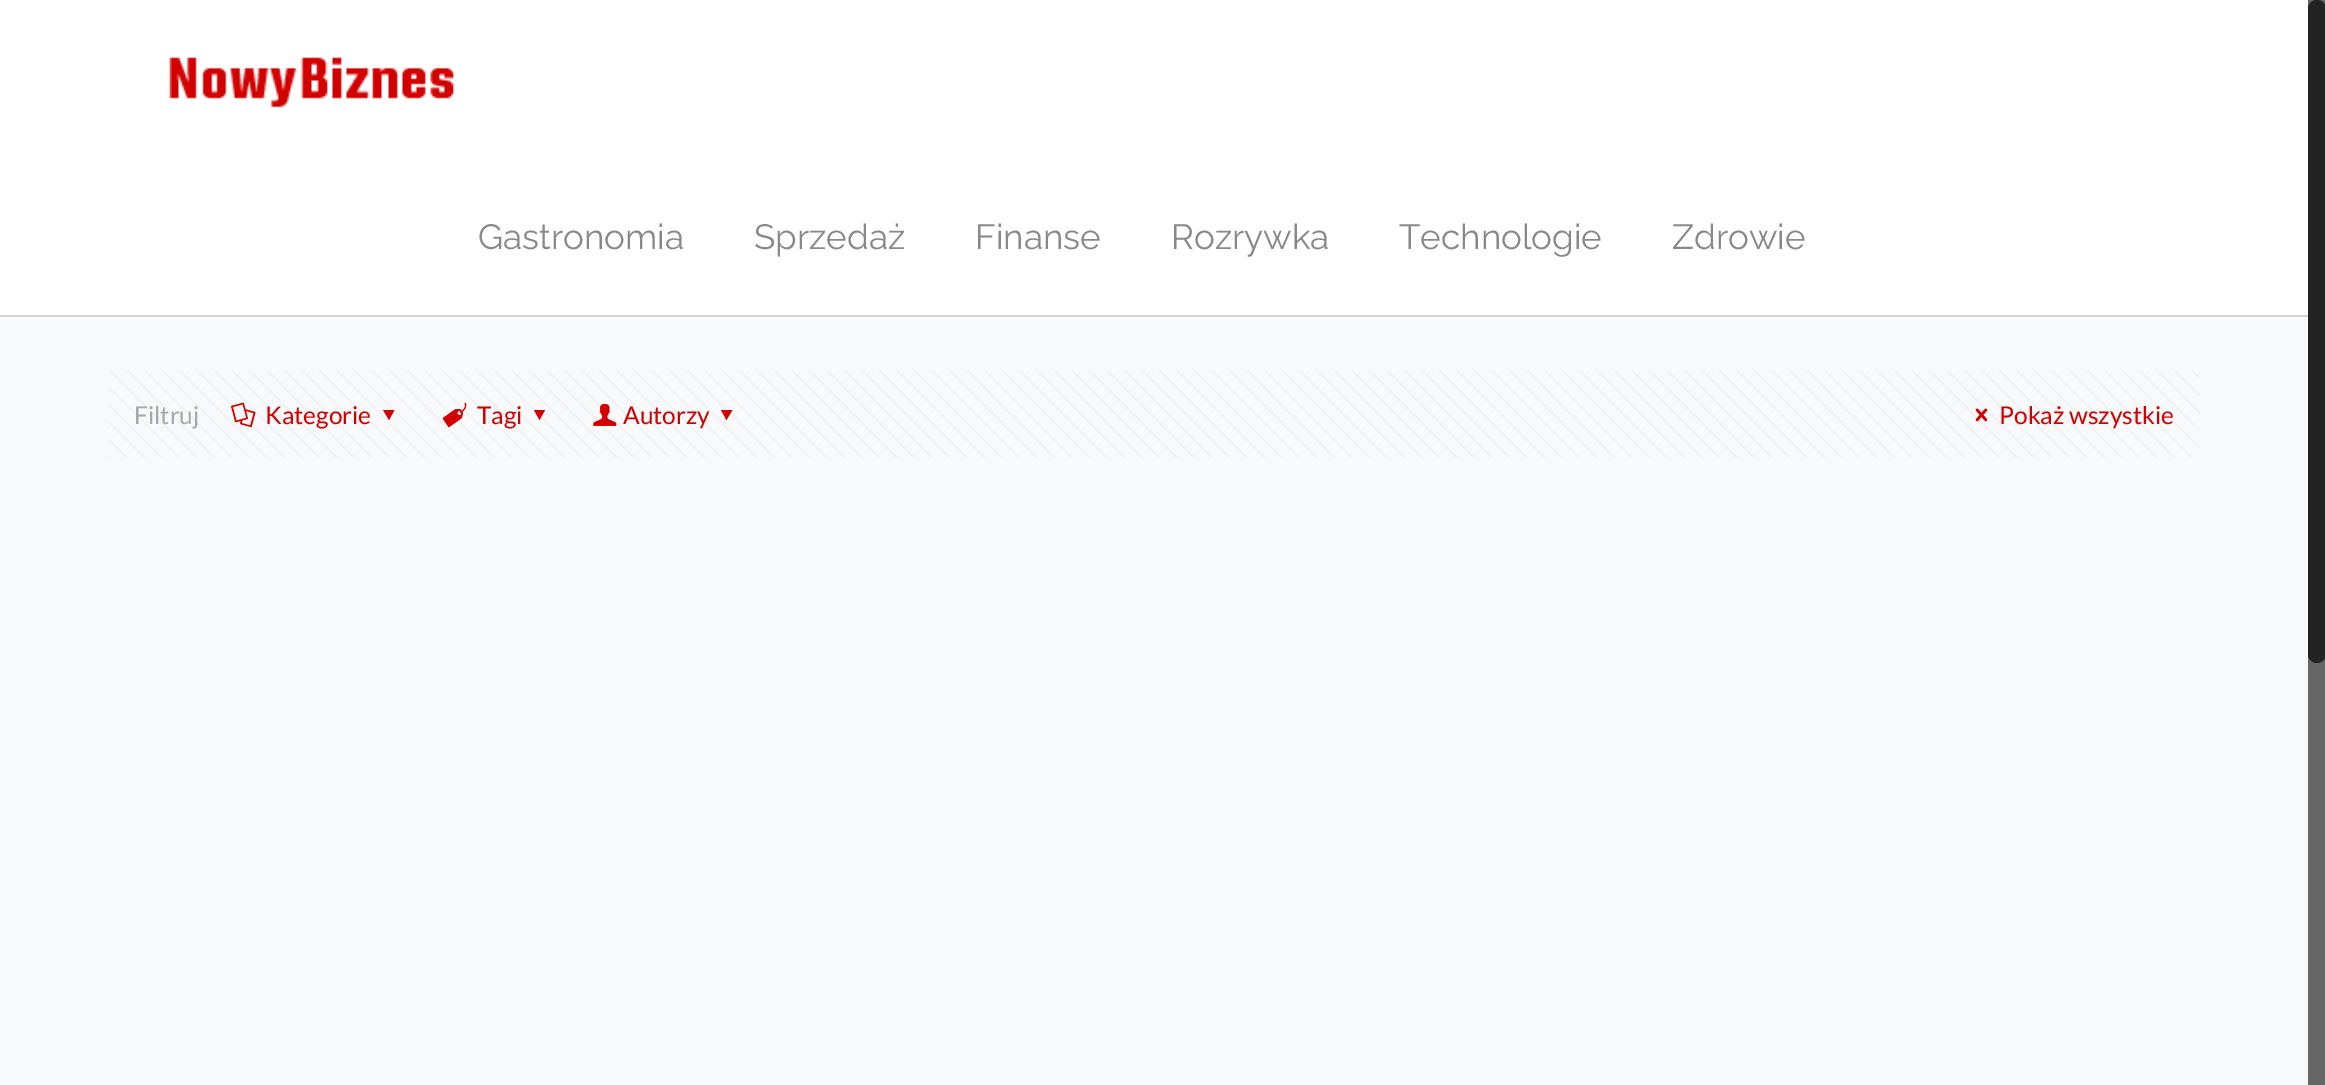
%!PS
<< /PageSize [2325 1085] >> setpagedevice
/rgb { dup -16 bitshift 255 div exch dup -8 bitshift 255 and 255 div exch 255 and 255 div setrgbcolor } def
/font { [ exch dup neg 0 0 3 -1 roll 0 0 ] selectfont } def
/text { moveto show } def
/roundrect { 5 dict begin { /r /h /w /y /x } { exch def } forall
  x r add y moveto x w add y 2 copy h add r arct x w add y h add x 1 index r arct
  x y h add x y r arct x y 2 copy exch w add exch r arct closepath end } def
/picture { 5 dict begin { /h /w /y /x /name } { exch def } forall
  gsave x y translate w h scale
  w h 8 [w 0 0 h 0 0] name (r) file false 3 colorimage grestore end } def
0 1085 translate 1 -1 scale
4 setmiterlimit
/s1 { /Raleway-Regular 35 font 16#888888 rgb } def
/s2 { /Lato-Regular 24.5 font 16#A8A8A8 rgb } def
/s3 { /Lato-Regular 24.5 font 16#D30000 rgb } def
16#F7F9FA rgb
0 0 2325 1085 rectfill
16#FFFFFF rgb
0 0 2308 315 rectfill
16#D3D3D3 rgb
0 315 2308 2 rectfill
(pic1.raw) 169 57 285 51 picture
s1
(Gastronomia) 478 249 text
(Sprzedaż) 754 249 text
(Finanse) 975 249 text
(Rozrywka) 1171 249 text
(Technologie) 1399 249 text
(Zdrowie) 1672 249 text
(pic2.raw) 109 370 2091 88 picture
s2
(Filtruj) 134 424 text
(pic3.raw) 231 402 25 26 picture
s3
(Kategorie) 265 424 text
394.5 410 moveto 389 420 lineto 383 410 lineto closepath fill
(pic4.raw) 442 402 25 26 picture
(Tagi) 477 424 text
545 410 moveto 539.5 420 lineto 534 410 lineto closepath fill
(pic5.raw) 593 403 24 23 picture
(Autorzy) 623 424 text
732.5 410 moveto 726.5 420 lineto 721 410 lineto closepath fill
(pic6.raw) 1975 408 13 14 picture
(Pokaż wszystkie) 1999 424 text
16#666666 rgb
2308 0 17 1085 rectfill
16#222222 rgb
2308 0 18 663 9 roundrect fill
showpage
